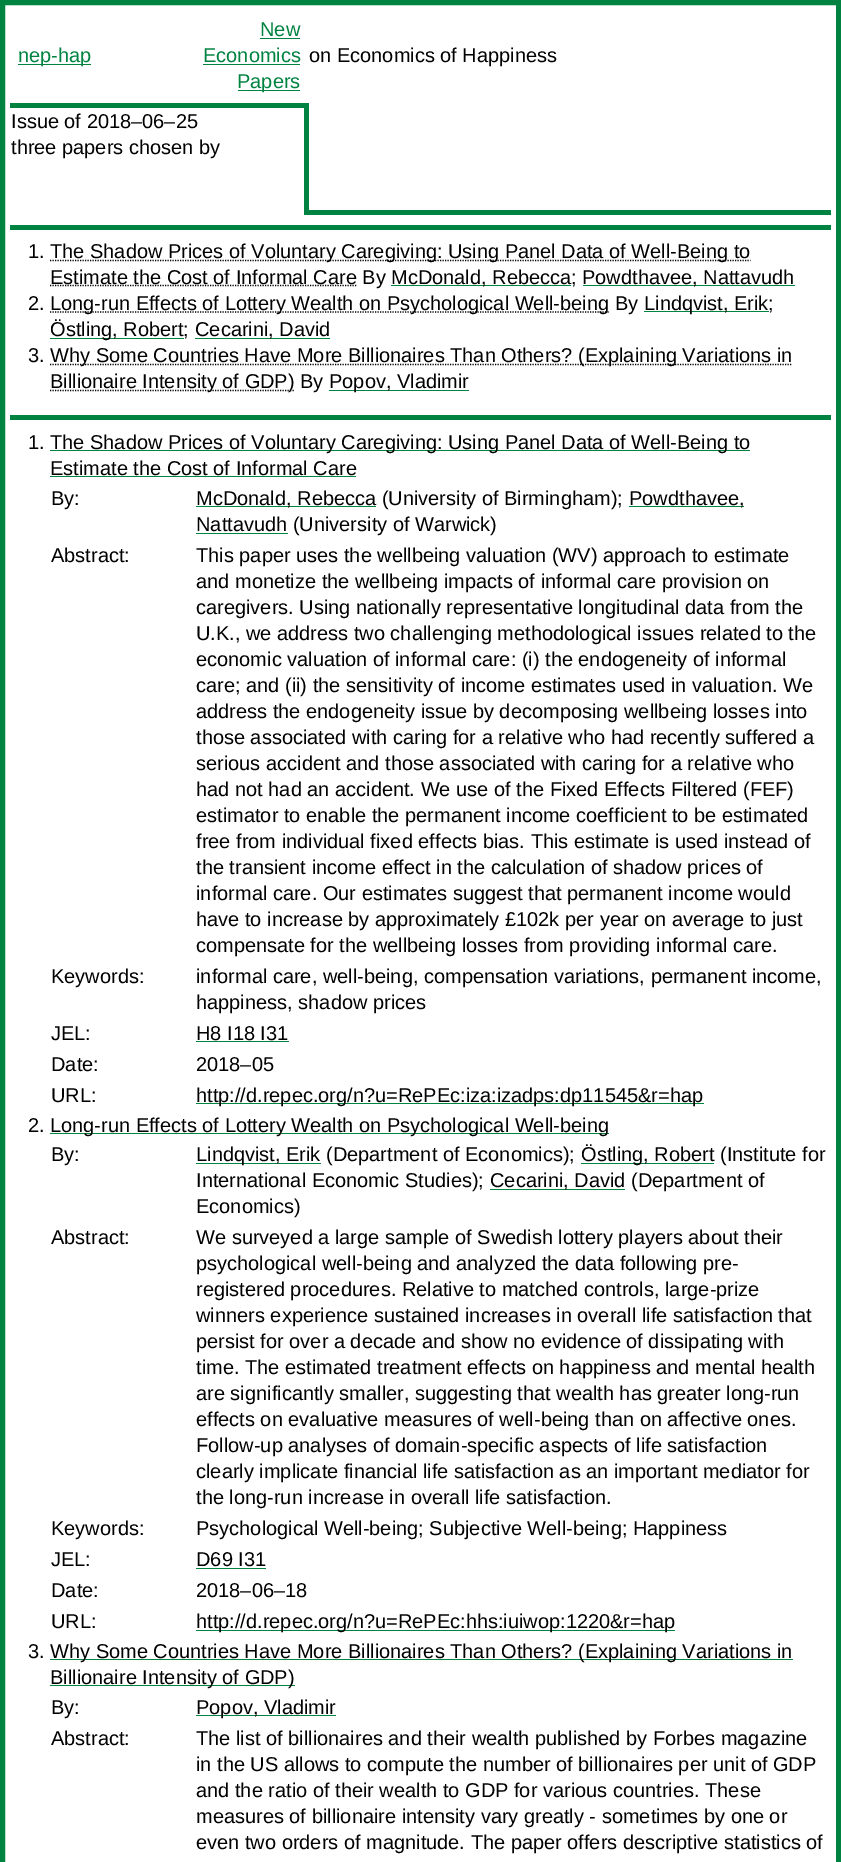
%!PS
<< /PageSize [841 1862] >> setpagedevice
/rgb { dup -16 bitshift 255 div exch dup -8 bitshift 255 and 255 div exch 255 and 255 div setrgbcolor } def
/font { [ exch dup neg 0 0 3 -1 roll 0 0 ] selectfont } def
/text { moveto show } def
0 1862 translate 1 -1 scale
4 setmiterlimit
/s1 { /LiberationSans-Regular 20 font 16#008241 rgb } def
/s2 { /LiberationSans-Regular 20 font 16#000000 rgb } def
16#FFFFFF rgb
0 0 841 1862 rectfill
16#008241 rgb
5 setlinewidth
2.5 2.5 836 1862 rectstroke
18 64 73 1 rectfill
s1
(nep-hap) 18 62 text
(New) 260 36 text
260 38 40 1 rectfill
(Economics) 203 62 text
203 64 97 1 rectfill
238 90 62 1 rectfill
(Papers) 237 88 text
s2
(on Economics of Happiness) 309 62 text
16#008241 rgb
10 103 296 5 rectfill
304 103 2 112 rectfill
s2
(Issue of 2018‒06‒25) 11 128 text
(three papers chosen by) 11 154 text
16#008241 rgb
306 210 525 5 rectfill
306 103 3 112 rectfill
10 225 821 5 rectfill
s2
(1.) 28 258 text
1.2 setlinewidth
[1.25 1.25] 0 setdash
50 260.5 moveto 750.5 260.5 lineto stroke
(The Shadow Prices of Voluntary Caregiving: Using Panel Data of Well-Being to) 50 258 text
50 285.5 moveto 357 285.5 lineto stroke
(Estimate the Cost of Informal Care By) 50 284 text
16#008241 rgb
391 285 180 1 rectfill
s2
(McDonald, Rebecca;) 391 284 text
16#008241 rgb
583 285 212 1 rectfill
s2
(Powdthavee, Nattavudh) 582 284 text
(2.) 28 310 text
50 312 moveto 609 312 lineto stroke
(Long-run Effects of Lottery Wealth on Psychological Well-being By) 50 310 text
16#008241 rgb
644 311 125 1 rectfill
s2
(Lindqvist, Erik;) 644 310 text
16#008241 rgb
50 338 134 1 rectfill
s2
(Östling, Robert;) 50 336 text
16#008241 rgb
195 338 135 1 rectfill
s2
(Cecarini, David) 195 336 text
(3.) 28 362 text
50 364.5 moveto 792.5 364.5 lineto stroke
(Why Some Countries Have More Billionaires Than Others? \(Explaining Variations in) 50 362 text
50 390.5 moveto 294.5 390.5 lineto stroke
(Billionaire Intensity of GDP\) By) 50 388 text
16#008241 rgb
329 390 140 1 rectfill
s2
(Popov, Vladimir) 329 388 text
16#008241 rgb
10 415 821 5 rectfill
s2
(1.) 28 449 text
16#008241 rgb
50 450 700 1 rectfill
s2
(The Shadow Prices of Voluntary Caregiving: Using Panel Data of Well-Being to) 50 449 text
(Estimate the Cost of Informal Care) 50 475 text
16#008241 rgb
50 476 306 1 rectfill
s2
(By:) 51 505 text
16#008241 rgb
196 506 180 1 rectfill
s2
(McDonald, Rebecca \(University of Birmingham\);) 196 505 text
16#008241 rgb
629 506 115 1 rectfill
s2
(Powdthavee,) 629 505 text
16#008241 rgb
196 533 92 1 rectfill
s2
(Nattavudh \(University of Warwick\)) 196 531 text
(Abstract:) 51 562 text
(This paper uses the wellbeing valuation \(WV\) approach to estimate) 196 562 text
(and monetize the wellbeing impacts of informal care provision on) 196 588 text
(caregivers. Using nationally representative longitudinal data from the) 196 614 text
(U.K., we address two challenging methodological issues related to the) 196 640 text
(economic valuation of informal care: \(i\) the endogeneity of informal) 196 666 text
(care; and \(ii\) the sensitivity of income estimates used in valuation. We) 196 692 text
(address the endogeneity issue by decomposing wellbeing losses into) 196 718 text
(those associated with caring for a relative who had recently suffered a) 196 744 text
(serious accident and those associated with caring for a relative who) 196 770 text
(had not had an accident. We use of the Fixed Effects Filtered \(FEF\)) 196 796 text
(estimator to enable the permanent income coefficient to be estimated) 196 822 text
(free from individual fixed effects bias. This estimate is used instead of) 196 848 text
(the transient income effect in the calculation of shadow prices of) 196 874 text
(informal care. Our estimates suggest that permanent income would) 196 900 text
(have to increase by approximately £102k per year on average to just) 196 926 text
(compensate for the wellbeing losses from providing informal care.) 196 952 text
(Keywords:) 51 983 text
(informal care, well-being, compensation variations, permanent income,) 196 983 text
(happiness, shadow prices) 196 1009 text
(JEL:) 51 1040 text
(H8 I18 I31) 196 1040 text
16#008241 rgb
196 1041 93 1 rectfill
s2
(Date:) 51 1071 text
(2018–05) 196 1071 text
(URL:) 51 1102 text
16#008241 rgb
196 1103 508 1 rectfill
s2
(http://d.repec.org/n?u=RePEc:iza:izadps:dp11545&r=hap) 196 1102 text
(2.) 28 1132 text
16#008241 rgb
50 1133 559 1 rectfill
s2
(Long-run Effects of Lottery Wealth on Psychological Well-being) 50 1132 text
(By:) 51 1161 text
16#008241 rgb
196 1163 125 1 rectfill
s2
(Lindqvist, Erik \(Department of Economics\);) 196 1161 text
16#008241 rgb
581 1163 133 1 rectfill
s2
(Östling, Robert \(Institute for) 581 1161 text
(International Economic Studies\);) 196 1187 text
16#008241 rgb
490 1189 135 1 rectfill
s2
(Cecarini, David \(Department of) 490 1187 text
(Economics\)) 196 1213 text
(Abstract:) 51 1244 text
(We surveyed a large sample of Swedish lottery players about their) 196 1244 text
(psychological well-being and analyzed the data following pre-) 196 1270 text
(registered procedures. Relative to matched controls, large-prize) 196 1296 text
(winners experience sustained increases in overall life satisfaction that) 196 1322 text
(persist for over a decade and show no evidence of dissipating with) 196 1348 text
(time. The estimated treatment effects on happiness and mental health) 196 1374 text
(are significantly smaller, suggesting that wealth has greater long-run) 196 1400 text
(effects on evaluative measures of well-being than on affective ones.) 196 1426 text
(Follow-up analyses of domain-specific aspects of life satisfaction) 196 1452 text
(clearly implicate financial life satisfaction as an important mediator for) 196 1478 text
(the long-run increase in overall life satisfaction.) 196 1504 text
(Keywords:) 51 1535 text
(Psychological Well-being; Subjective Well-being; Happiness) 196 1535 text
(JEL:) 51 1566 text
(D69 I31) 196 1566 text
16#008241 rgb
196 1568 70 1 rectfill
s2
(Date:) 51 1597 text
(2018–06–18) 196 1597 text
(URL:) 51 1628 text
16#008241 rgb
196 1630 479 1 rectfill
s2
(http://d.repec.org/n?u=RePEc:hhs:iuiwop:1220&r=hap) 196 1628 text
(3.) 28 1658 text
16#008241 rgb
50 1659 743 1 rectfill
s2
(Why Some Countries Have More Billionaires Than Others? \(Explaining Variations in) 50 1658 text
16#008241 rgb
50 1685 245 1 rectfill
s2
(Billionaire Intensity of GDP\)) 50 1684 text
(By:) 51 1714 text
16#008241 rgb
196 1715 140 1 rectfill
s2
(Popov, Vladimir) 196 1714 text
(Abstract:) 51 1745 text
(The list of billionaires and their wealth published by Forbes magazine) 196 1745 text
(in the US allows to compute the number of billionaires per unit of GDP) 196 1771 text
(and the ratio of their wealth to GDP for various countries. These) 196 1797 text
(measures of billionaire intensity vary greatly - sometimes by one or) 196 1823 text
(even two orders of magnitude. The paper offers descriptive statistics of) 196 1849 text
showpage
